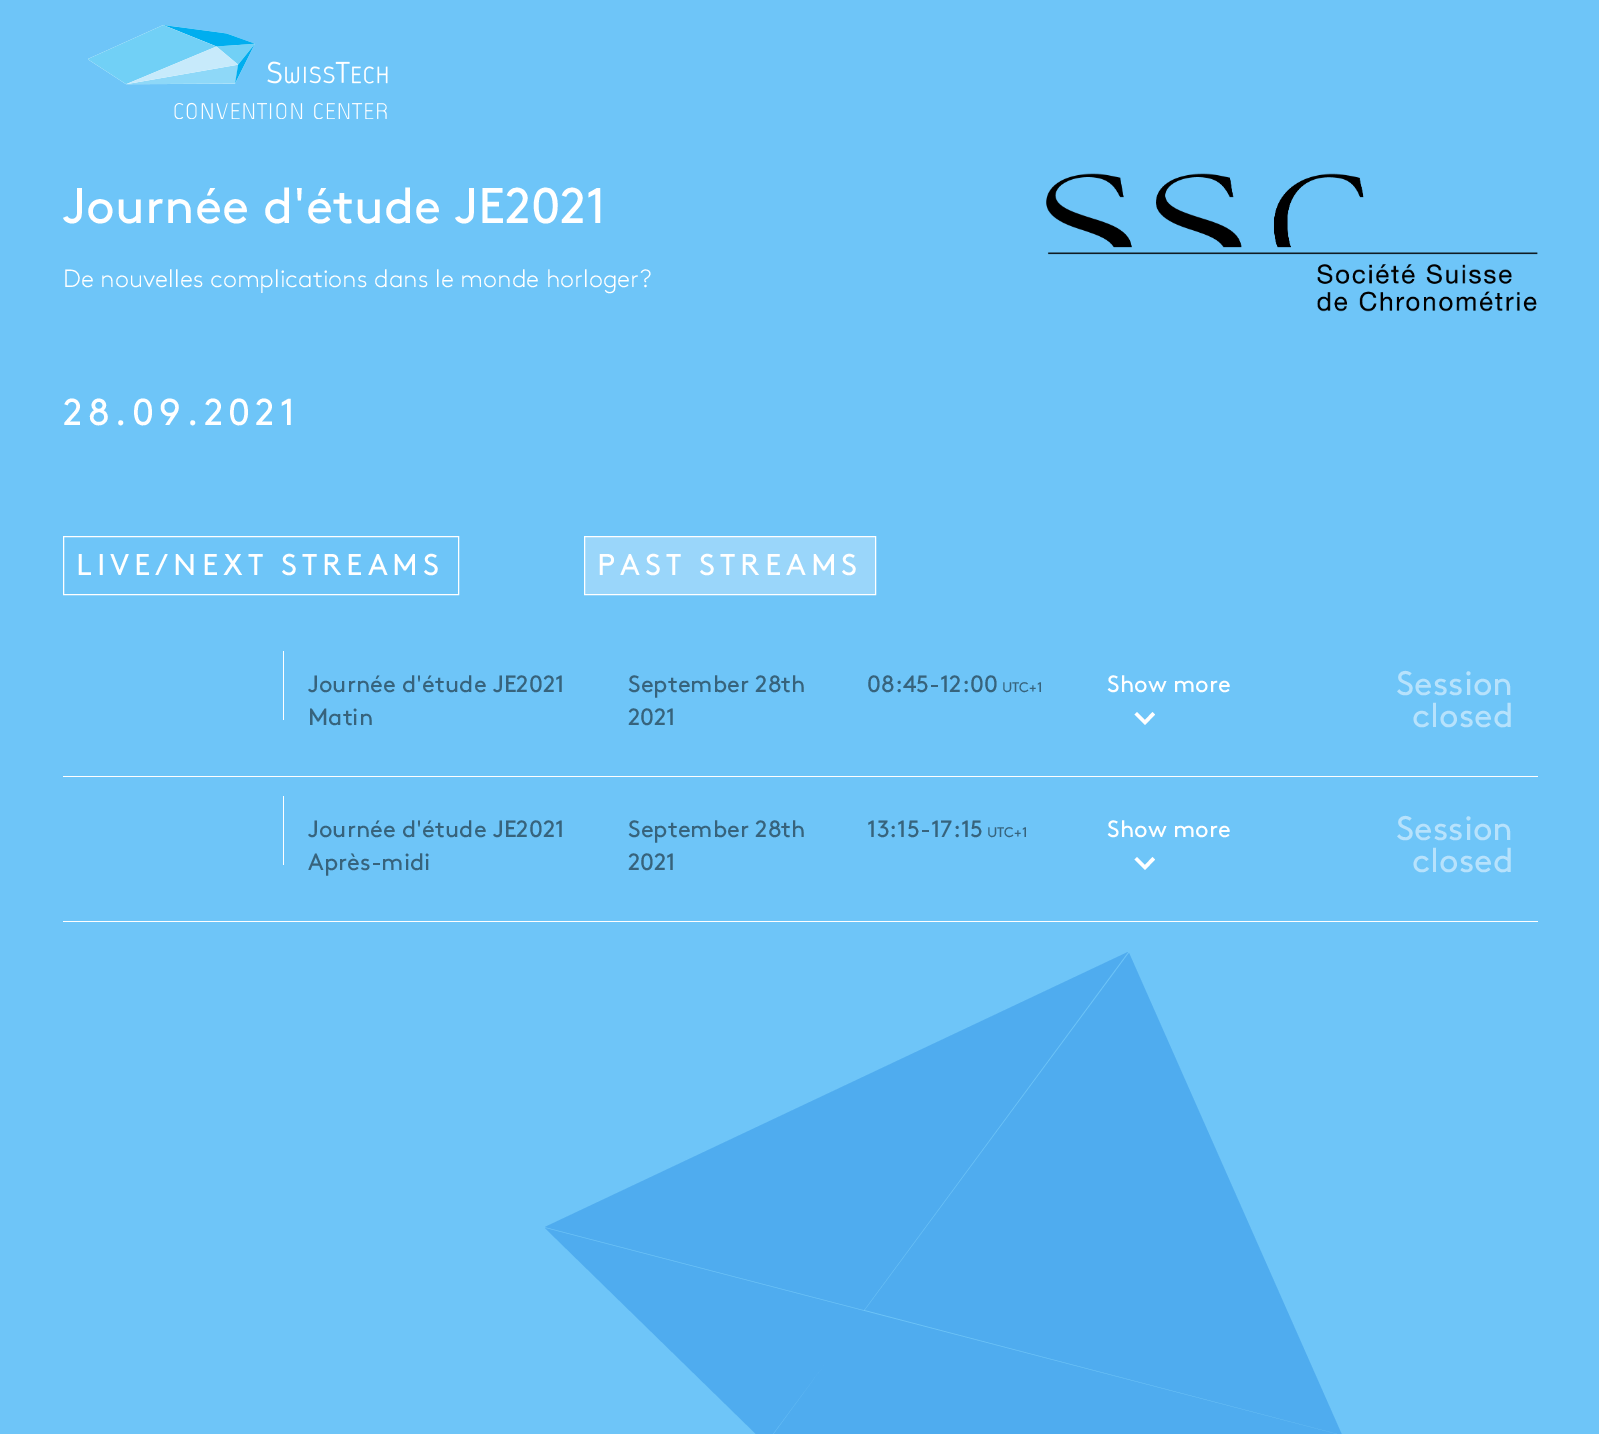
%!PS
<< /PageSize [1599 1434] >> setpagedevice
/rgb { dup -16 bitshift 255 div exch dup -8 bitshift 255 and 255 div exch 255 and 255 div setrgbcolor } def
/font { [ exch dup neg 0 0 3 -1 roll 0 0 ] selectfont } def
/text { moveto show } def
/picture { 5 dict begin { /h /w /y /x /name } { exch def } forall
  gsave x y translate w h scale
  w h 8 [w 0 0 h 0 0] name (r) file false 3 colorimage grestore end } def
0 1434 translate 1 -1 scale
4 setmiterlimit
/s1 { /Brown-Regular 50 font 16#FFFFFF rgb } def
/s2 { /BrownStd-Light 25 font 16#FFFFFF rgb } def
/s3 { /Brown-Regular 23.6 font 16#37637C rgb } def
/s4 { /Brown-Regular 14 font 16#37637C rgb } def
/s5 { /Brown-Regular 23.6 font 16#FFFFFF rgb } def
/s6 { /Brown-Regular 34 font 16#B7E2FC rgb } def
16#6EC5F8 rgb
0 0 1599 1434 rectfill
(pic1.raw) 88 25 300 94 picture
s1
(Journée d'étude JE2021) 63 223 text
s2
(De nouvelles complications dans le monde horloger?) 63 287 text
/Brown-Regular 37.5 font
63 425 moveto 5 0 (28.09.2021) ashow
(pic2.raw) 1046 173 492 139 picture
63.5 536.5 395 58 rectstroke
/Brown-Regular 30 font
76 575 moveto 5 0 (LIVE/NEXT STREAMS) ashow
16#9AD6FA rgb
584.5 536.5 moveto 875.5 536.5 lineto 875.5 594.5 lineto 584.5 594.5 lineto closepath gsave fill grestore
16#FFFFFF rgb
stroke
597 575 moveto 5 0 (PAST STREAMS) ashow
63 776 1475 1 rectfill
283 651 1 69 rectfill
s3
(Journée d'étude JE2021) 308 692 text
(Matin) 308 725 text
(September 28th) 628 692 text
(2021) 628 725 text
(08:45-12:00) 867 692 text
s4
(UTC+1) 1002 692 text
s5
(Show more) 1107 692 text
1137 712 moveto 1145 720 lineto 1152.5 712 lineto 1155 714.5 lineto 1145 725 lineto 1134.5 714.5 lineto closepath fill
s6
(Session) 1396 695 text
(closed) 1412 727 text
16#FFFFFF rgb
63 921 1475 1 rectfill
283 796 1 69 rectfill
s3
(Journée d'étude JE2021) 308 837 text
(Après-midi) 308 870 text
(September 28th) 628 837 text
(2021) 628 870 text
(13:15-17:15) 867 837 text
s4
(UTC+1) 987 837 text
s5
(Show more) 1107 837 text
1137 857 moveto 1145 865 lineto 1152.5 857 lineto 1155 859.5 lineto 1145 870 lineto 1134.5 859.5 lineto closepath fill
s6
(Session) 1396 840 text
(closed) 1412 872 text
16#4FACEF rgb
1129 953 moveto 865 1310 lineto 1342 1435 lineto closepath 864 1311 moveto 773 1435 lineto 1340 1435 lineto closepath 864 1311 moveto 545 1228 lineto 757 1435 lineto 772 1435 lineto closepath 1128 952 moveto 545 1227 lineto 864 1310 lineto closepath fill
showpage
